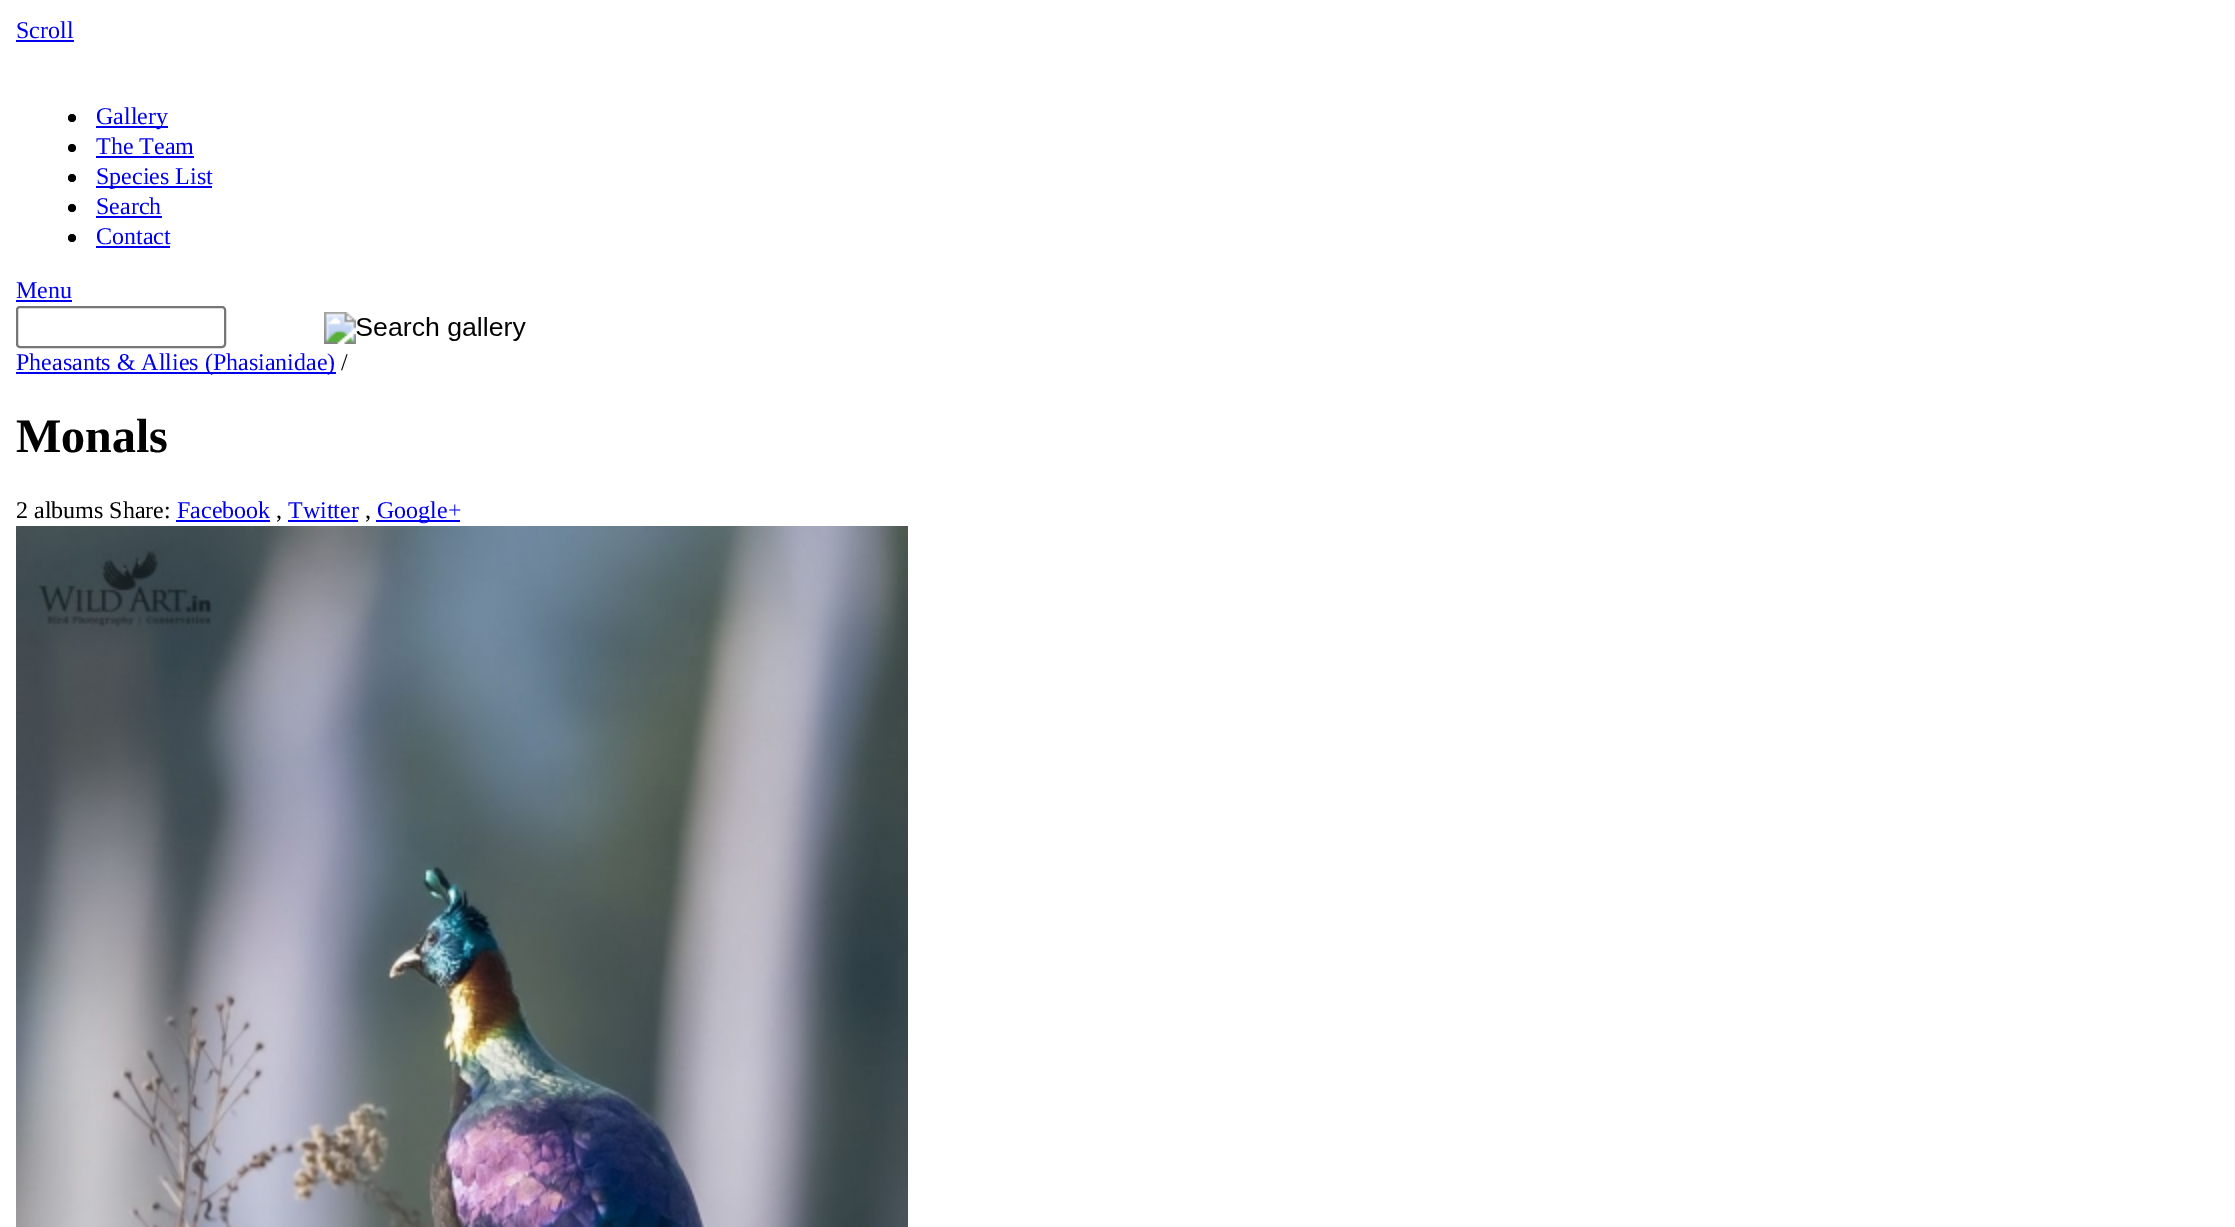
%!PS
<< /PageSize [2235 1227] >> setpagedevice
/rgb { dup -16 bitshift 255 div exch dup -8 bitshift 255 and 255 div exch 255 and 255 div setrgbcolor } def
/font { [ exch dup neg 0 0 3 -1 roll 0 0 ] selectfont } def
/text { moveto show } def
/circle { newpath 0 360 arc closepath } def
/roundrect { 5 dict begin { /r /h /w /y /x } { exch def } forall
  x r add y moveto x w add y 2 copy h add r arct x w add y h add x 1 index r arct
  x y h add x y r arct x y 2 copy exch w add exch r arct closepath end } def
/picture { 5 dict begin { /h /w /y /x /name } { exch def } forall
  gsave x y translate w h scale
  w h 8 [w 0 0 h 0 0] name (r) file false 3 colorimage grestore end } def
0 1227 translate 1 -1 scale
4 setmiterlimit
/s1 { /LiberationSerif-Regular 24 font 16#0000EE rgb } def
/s2 { /LiberationSerif-Regular 24 font 16#000000 rgb } def
/s3 { /LiberationSerif-Bold 48 font 16#000000 rgb } def
16#FFFFFF rgb
0 0 2235 1227 rectfill
s1
(Scroll) 16 38 text
16 40 58 2 rectfill
16#000000 rgb
72 118 4 circle fill
16#0000EE rgb
96 126 72 2 rectfill
(Gallery) 96 124 text
16#000000 rgb
72 148 4 circle fill
s1
(The Team) 96 154 text
96 156 98 2 rectfill
16#000000 rgb
72 178 4 circle fill
16#0000EE rgb
96 186 116 2 rectfill
(Species List) 96 184 text
16#000000 rgb
72 208 4 circle fill
s1
(Search) 96 214 text
96 216 66 2 rectfill
16#000000 rgb
72 238 4 circle fill
s1
(Contact) 96 244 text
96 246 74 2 rectfill
(Menu) 16 298 text
16 300 56 2 rectfill
16#767676 rgb
2 setlinewidth
17 307 208 40 3 roundrect stroke
(pic1.raw) 324 312 202 32 picture
16#0000EE rgb
16 372 320 2 rectfill
(Pheasants & Allies \(Phasianidae\)) 16 370 text
s2
(/) 341 370 text
s3
(Monals) 16 452 text
s2
(2 albums Share:) 16 518 text
s1
(Facebook) 177 518 text
s2
(,) 276 518 text
16#0000EE rgb
176 520 94 2 rectfill
288 520 70 2 rectfill
(Twitter) 288 518 text
s2
(,) 365 518 text
16#0000EE rgb
376 520 84 2 rectfill
(Google+) 377 518 text
(pic2.raw) 16 526 892 701 picture
showpage
